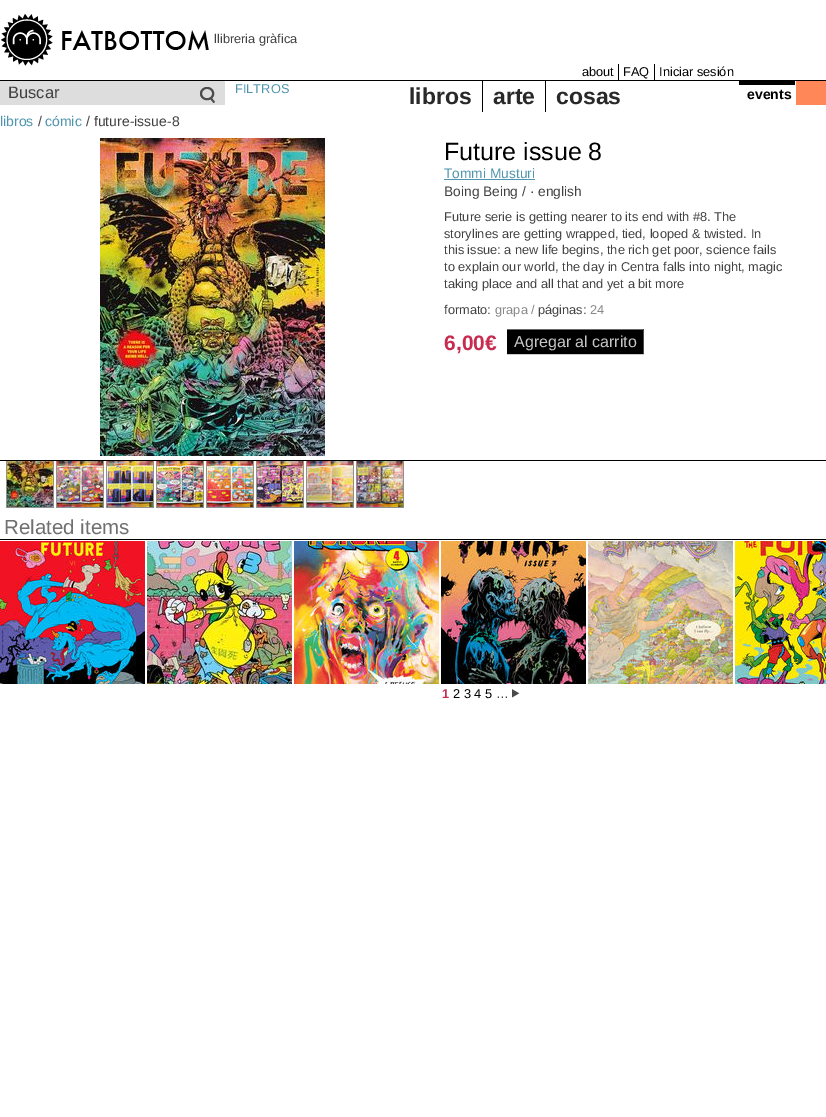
%!PS
<< /PageSize [826 1117] >> setpagedevice
/rgb { dup -16 bitshift 255 div exch dup -8 bitshift 255 and 255 div exch 255 and 255 div setrgbcolor } def
/font { [ exch dup neg 0 0 3 -1 roll 0 0 ] selectfont } def
/text { moveto show } def
/picture { 5 dict begin { /h /w /y /x /name } { exch def } forall
  gsave x y translate w h scale
  w h 8 [w 0 0 h 0 0] name (r) file false 3 colorimage grestore end } def
0 1117 translate 1 -1 scale
4 setmiterlimit
/s1 { /LiberationSans-Regular 12.8 font 16#414141 rgb } def
/s2 { /LiberationSans-Regular 12.8 font 16#000000 rgb } def
/s3 { /LiberationSans-Regular 16.5 font 16#414141 rgb } def
/s4 { /LiberationSans-Regular 12.8 font 16#4E94AE rgb } def
/s5 { /LiberationSans-Bold 23 font 16#292929 rgb } def
/s6 { /LiberationSans-Bold 14 font 16#000000 rgb } def
/s7 { /LiberationSans-Regular 14 font 16#4E94AE rgb } def
/s8 { /LiberationSans-Regular 14 font 16#414141 rgb } def
/s9 { /LiberationSans-Regular 25 font 16#000000 rgb } def
/s10 { /LiberationSans-Regular 13.75 font 16#4E94AE rgb } def
/s11 { /LiberationSans-Regular 13.75 font 16#414141 rgb } def
/s12 { /LiberationSans-Regular 12.8 font 16#888888 rgb } def
/s13 { /LiberationSans-Bold 21 font 16#C72C50 rgb } def
/s14 { /LiberationSans-Regular 16 font 16#C7C7C7 rgb } def
/s15 { /LiberationSans-Regular 20.5 font 16#707070 rgb } def
/s16 { /LiberationSans-Bold 12.8 font 16#C72C50 rgb } def
16#FFFFFF rgb
0 0 826 1117 rectfill
16#000000 rgb
0 80 826 1 rectfill
(pic1.raw) 1 14 208 52 picture
s1
(llibreria gràfica) 214 43 text
16#000000 rgb
618 64 1 17 rectfill
(about) 582 76 text
654 64 1 17 rectfill
(FAQ) 623 76 text
(Iniciar sesión) 659 76 text
16#DDDDDD rgb
0 81 225 24 rectfill
s3
(Buscar) 8 98 text
(pic2.raw) 200 87 15 16 picture
s4
(FILTROS) 235 93 text
16#000000 rgb
482 81 1 31 rectfill
s5
(libros) 409 104 text
16#000000 rgb
545 81 1 31 rectfill
s5
(arte) 493 104 text
(cosas) 556 104 text
16#000000 rgb
739 81 56 4 rectfill
s6
(events) 747 99 text
16#FF8758 rgb
796 81 30 24 rectfill
s7
(libros) 0 126 text
s8
(/) 38 126 text
s7
(cómic) 45 126 text
s8
(/ future-issue-8) 86 126 text
(pic3.raw) 100 138 225 318 picture
s9
(Future issue 8) 444 160 text
s10
(Tommi Musturi) 444 178 text
444 179 91 1 rectfill
s11
(Boing Being / · english) 444 196 text
s1
(Future serie is getting nearer to its end with #8. The) 444 221 text
(storylines are getting wrapped, tied, looped & twisted. In) 444 238 text
(this issue: a new life begins, the rich get poor, science fails) 444 254 text
(to explain our world, the day in Centra falls into night, magic) 444 271 text
(taking place and all that and yet a bit more) 444 288 text
(formato:) 444 314 text
s12
(grapa /) 495 314 text
s1
(páginas:) 538 314 text
s12
(24) 590 314 text
s13
(6,00€) 444 350 text
16#000000 rgb
507 330 136 24 rectfill
16#666666 rgb
507 329 137 1 rectfill
16#4B4B4B rgb
643 329 1 26 rectfill
16#CCCCCC rgb
507 354 137 1 rectfill
s14
(Agregar al carrito) 514 347 text
16#000000 rgb
0 460 826 1 rectfill
16#909090 rgb
53 461 1 47 rectfill
6 507 48 1 rectfill
6 461 1 47 rectfill
(pic4.raw) 7 461 46 46 picture
103 461 1 47 rectfill
56 507 48 1 rectfill
56 461 1 47 rectfill
(pic5.raw) 57 461 46 46 picture
153 461 1 47 rectfill
106 507 48 1 rectfill
106 461 1 47 rectfill
(pic6.raw) 107 461 46 46 picture
203 461 1 47 rectfill
156 507 48 1 rectfill
156 461 1 47 rectfill
(pic7.raw) 157 461 46 46 picture
253 461 1 47 rectfill
206 507 48 1 rectfill
206 461 1 47 rectfill
(pic8.raw) 207 461 46 46 picture
303 461 1 47 rectfill
256 507 48 1 rectfill
256 461 1 47 rectfill
(pic9.raw) 257 461 46 46 picture
353 461 1 47 rectfill
306 507 48 1 rectfill
306 461 1 47 rectfill
(pic10.raw) 307 461 46 46 picture
403 461 1 47 rectfill
356 507 48 1 rectfill
356 461 1 47 rectfill
(pic11.raw) 357 461 46 46 picture
16#000000 rgb
0 539 826 1 rectfill
s15
(Related items) 4 534 text
(pic12.raw) 0 541 145 143 picture
(pic13.raw) 147 541 145 143 picture
(pic14.raw) 294 541 145 143 picture
(pic15.raw) 441 541 145 143 picture
(pic16.raw) 588 541 145 143 picture
(pic17.raw) 735 541 91 143 picture
s16
(1) 442 698 text
s2
(2 3 4 5) 453 698 text
s1
(…) 496 698 text
(pic18.raw) 512 689 8 9 picture
showpage
